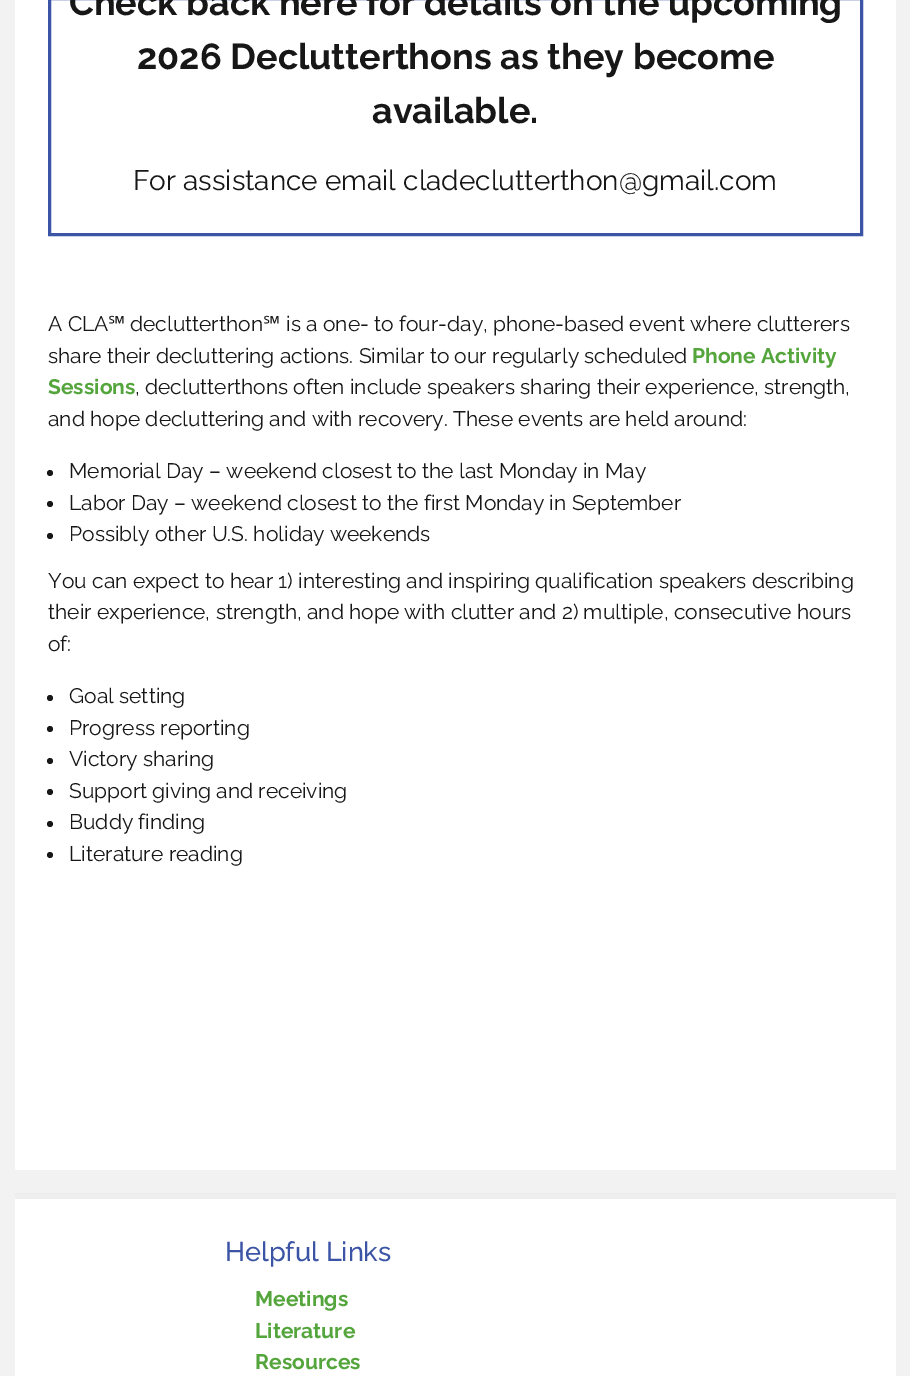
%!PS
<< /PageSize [910 1376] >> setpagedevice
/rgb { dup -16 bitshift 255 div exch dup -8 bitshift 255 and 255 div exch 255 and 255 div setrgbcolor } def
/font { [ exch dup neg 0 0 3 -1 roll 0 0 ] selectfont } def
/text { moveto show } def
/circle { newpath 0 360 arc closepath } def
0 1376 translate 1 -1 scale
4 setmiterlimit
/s1 { /Raleway-Bold 36 font 16#171717 rgb } def
/s2 { /Raleway-Regular 28 font 16#171717 rgb } def
/s3 { /Raleway-Regular 21 font 16#171717 rgb } def
/s4 { /NotoSans-Regular 21 font 16#171717 rgb } def
/s5 { /Raleway-Bold 21 font 16#54A53B rgb } def
/s6 { /Raleway-Medium 27 font 16#3B54A5 rgb } def
16#F2F2F2 rgb
0 0 910 1376 rectfill
16#FFFFFF rgb
15 0 881 1170 rectfill
16#3B54A5 rgb
3 setlinewidth
49.5 -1.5 812 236 rectstroke
s1
(Check back here for details on the upcoming) 69 15 text
(2026 Declutterthons as they become) 137 69 text
(available.) 372 123 text
s2
(For assistance email cladeclutterthon@gmail.com) 133 190 text
s3
(A CLA) 48 331 text
s4
(℠) 108 331 text
s3
(declutterthon) 130 331 text
s4
(℠) 263 331 text
s3
(is a one- to four-day, phone-based event where clutterers) 286 331 text
(share their decluttering actions. Similar to our regularly scheduled) 48 363 text
s5
(Phone Activity) 692 363 text
(Sessions) 48 394 text
s3
(, declutterthons often include speakers sharing their experience, strength,) 135 394 text
(and hope decluttering and with recovery. These events are held around:) 48 426 text
50 473 3 circle fill
(Memorial Day – weekend closest to the last Monday in May) 69 478 text
50 504 3 circle fill
(Labor Day – weekend closest to the first Monday in September) 69 510 text
50 536 3 circle fill
(Possibly other U.S. holiday weekends) 69 541 text
(You can expect to hear 1\) interesting and inspiring qualification speakers describing) 48 588 text
(their experience, strength, and hope with clutter and 2\) multiple, consecutive hours) 48 619 text
(of:) 48 651 text
50 698 3 circle fill
(Goal setting) 69 703 text
50 729 3 circle fill
(Progress reporting) 69 735 text
50 761 3 circle fill
(Victory sharing) 69 766 text
50 792 3 circle fill
(Support giving and receiving) 69 798 text
50 824 3 circle fill
(Buddy finding) 69 829 text
50 855 3 circle fill
(Literature reading) 69 861 text
16#FFFFFF rgb
15 1199 881 177 rectfill
16#EEEEEE rgb
15 1193 881 6 rectfill
s6
(Helpful Links) 225 1261 text
s5
(Meetings) 255 1306 text
(Literature) 255 1338 text
(Resources) 255 1369 text
showpage
